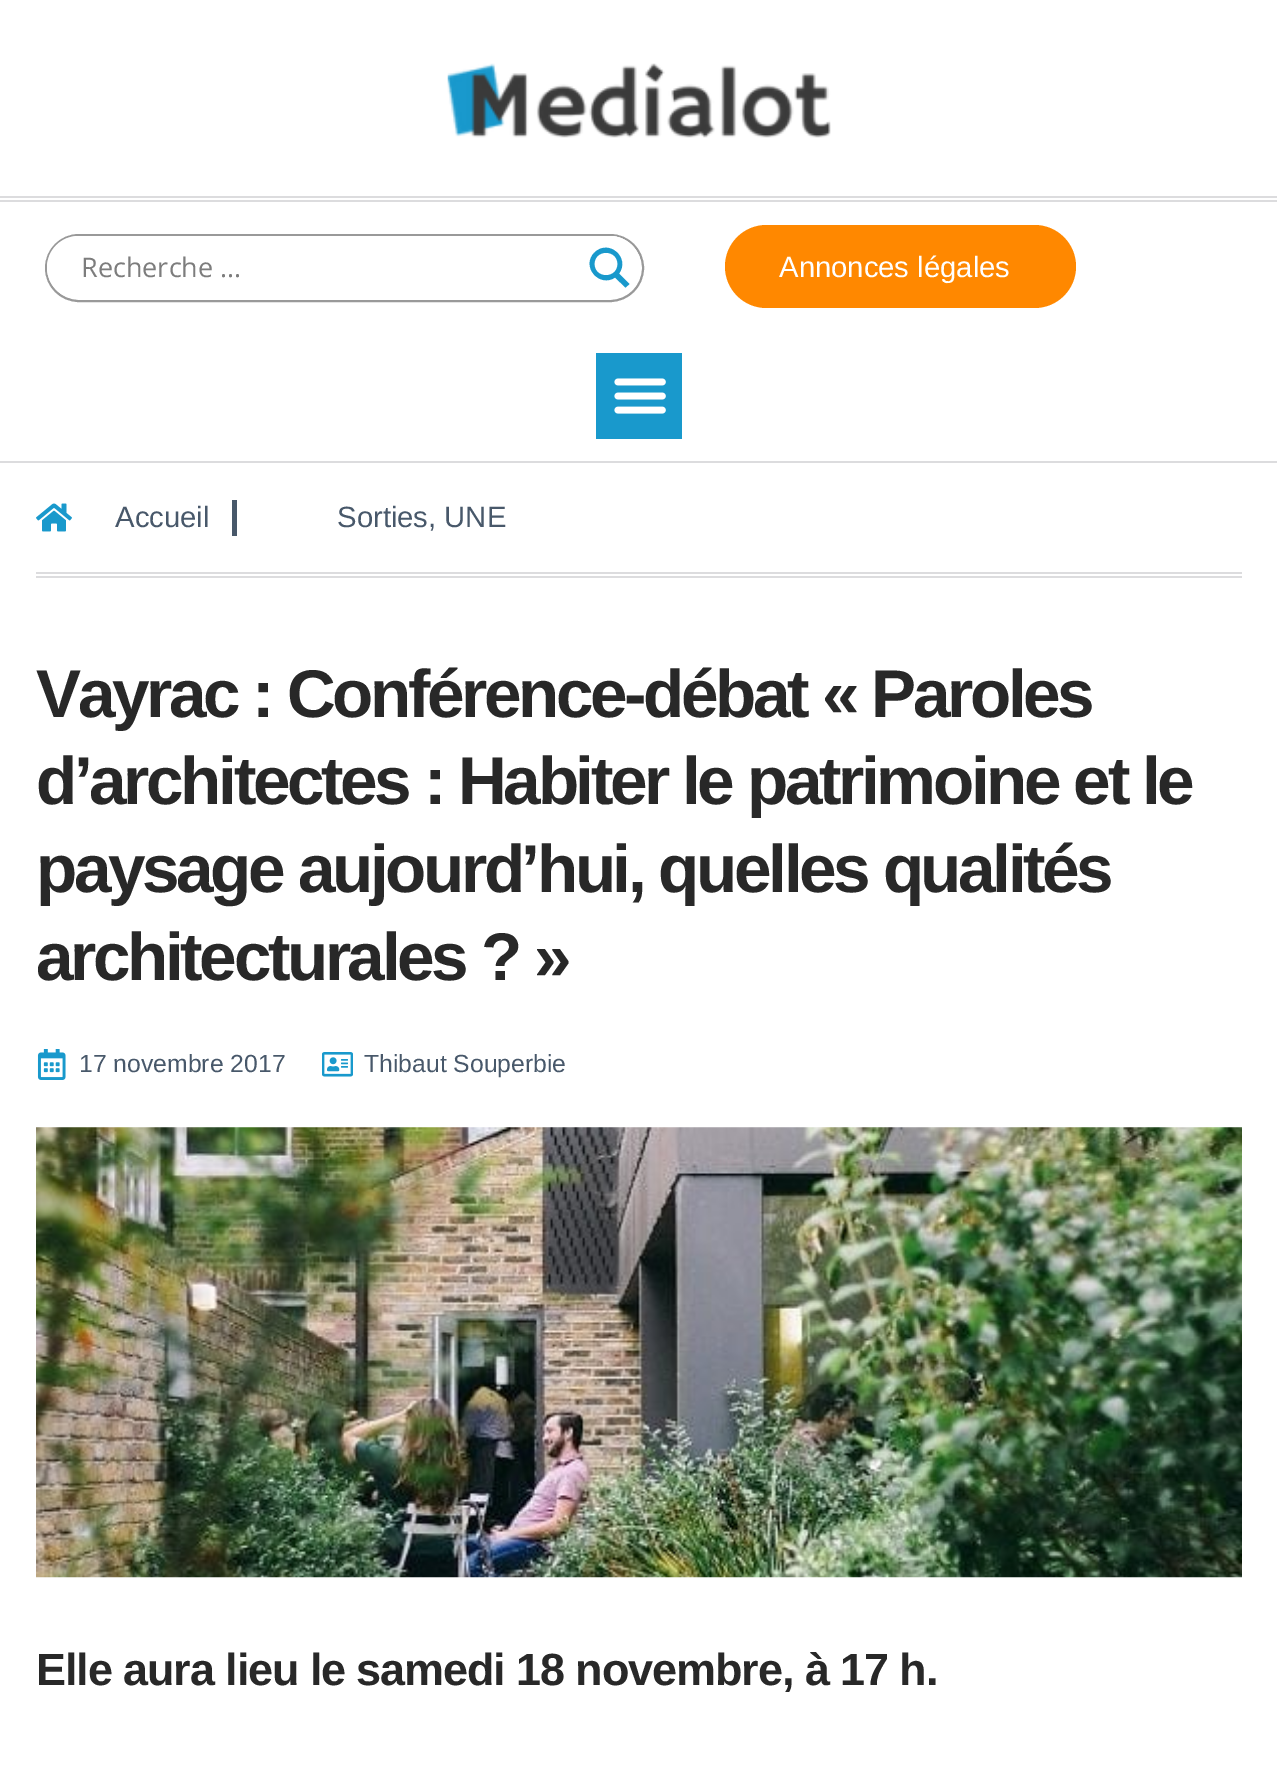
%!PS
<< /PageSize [1277 1767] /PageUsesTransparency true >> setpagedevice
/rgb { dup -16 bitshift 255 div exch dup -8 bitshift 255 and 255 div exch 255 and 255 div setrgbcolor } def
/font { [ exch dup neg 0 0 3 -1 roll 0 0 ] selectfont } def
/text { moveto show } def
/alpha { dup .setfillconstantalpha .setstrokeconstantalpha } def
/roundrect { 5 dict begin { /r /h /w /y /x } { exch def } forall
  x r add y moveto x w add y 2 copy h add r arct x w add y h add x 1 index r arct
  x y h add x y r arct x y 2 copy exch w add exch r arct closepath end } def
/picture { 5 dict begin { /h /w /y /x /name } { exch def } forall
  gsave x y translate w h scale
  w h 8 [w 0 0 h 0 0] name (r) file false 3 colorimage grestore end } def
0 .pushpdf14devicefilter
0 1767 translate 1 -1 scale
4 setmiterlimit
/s1 { /OpenSans-Regular 27 font 16#7D7D7D rgb } def
/s2 { /LiberationSans-Regular 29.25 font 16#FFFFFF rgb } def
/s3 { /LiberationSans-Regular 29.25 font 16#48586A rgb } def
/s4 { /LiberationSans-Regular 24.75 font 16#48586A rgb } def
16#FFFFFF rgb
0 0 1277 1767 rectfill
16#DCDCDE rgb
0 196 1277 2 rectfill
0 200 1277 2 rectfill
(pic1.raw) 447 63 384 75 picture
0 461 1277 2 rectfill
16#999999 rgb
2 setlinewidth
46 235 597 66 33 roundrect stroke
16#FFFFFF rgb
47 236 594 63 31.5 roundrect fill
s1
(Recherche ...) 81 277 text
gsave
578 236 63 63 rectclip
0.64 alpha
16#FFFFFF rgb
576 238 moveto 576 299 lineto 356 299 lineto 356 236 lineto 610 236 lineto 613 236 617 237 621 238 curveto closepath 639 279 moveto 642 271 642 264 639 256 curveto closepath eofill
grestore
16#FFFFFF rgb
578 236 moveto 609.5 236 lineto 627 236 641 250 641 267.5 curveto 641 285 627 299 609.5 299 curveto 578 299 lineto closepath fill
16#1999CC rgb
629.5 284 moveto 619 273.5 lineto 630.5 258 609 238.5 594.5 252.5 curveto 580.5 266.5 599.5 288 615 277.5 curveto 625.5 287.5 lineto closepath 594.5 264 moveto 594.5 249 617.5 249 617.5 264 curveto 617.5 279 594.5 279 594.5 264 curveto closepath fill
16#FF8800 rgb
725 225 351 83 41.5 roundrect fill
s2
(Annonces légales) 779 277 text
16#1999CC rgb
596 353 86 86 rectfill
(pic2.raw) 614 378 52 36 picture
16#DCDCDE rgb
36 572 1206 2 rectfill
36 576 1206 2 rectfill
(pic3.raw) 36 503 36 29 picture
s3
(Accueil) 115 527 text
232 500 5 36 rectfill
(Sorties, UNE) 337 527 text
/LiberationSans-Bold 67.5 font
16#282828 rgb
36 717 moveto -3.4 0 (Vayrac : Conférence-débat « Paroles) ashow
36 804 moveto -3.4 0 (d’architectes : Habiter le patrimoine et le) ashow
36 892 moveto -3.4 0 (paysage aujourd’hui, quelles qualités) ashow
36 980 moveto -3.4 0 (architecturales ? ») ashow
(pic4.raw) 37 1049 29 31 picture
s4
(17 novembre 2017) 79 1072 text
(pic5.raw) 322 1052 31 25 picture
(Thibaut Souperbie) 364 1072 text
(pic6.raw) 36 1127 1206 451 picture
/LiberationSans-Bold 45 font
16#282828 rgb
36 1685 moveto -1.1 0 (Elle aura lieu le samedi 18 novembre, à 17 h.) ashow
.poppdf14devicefilter showpage
